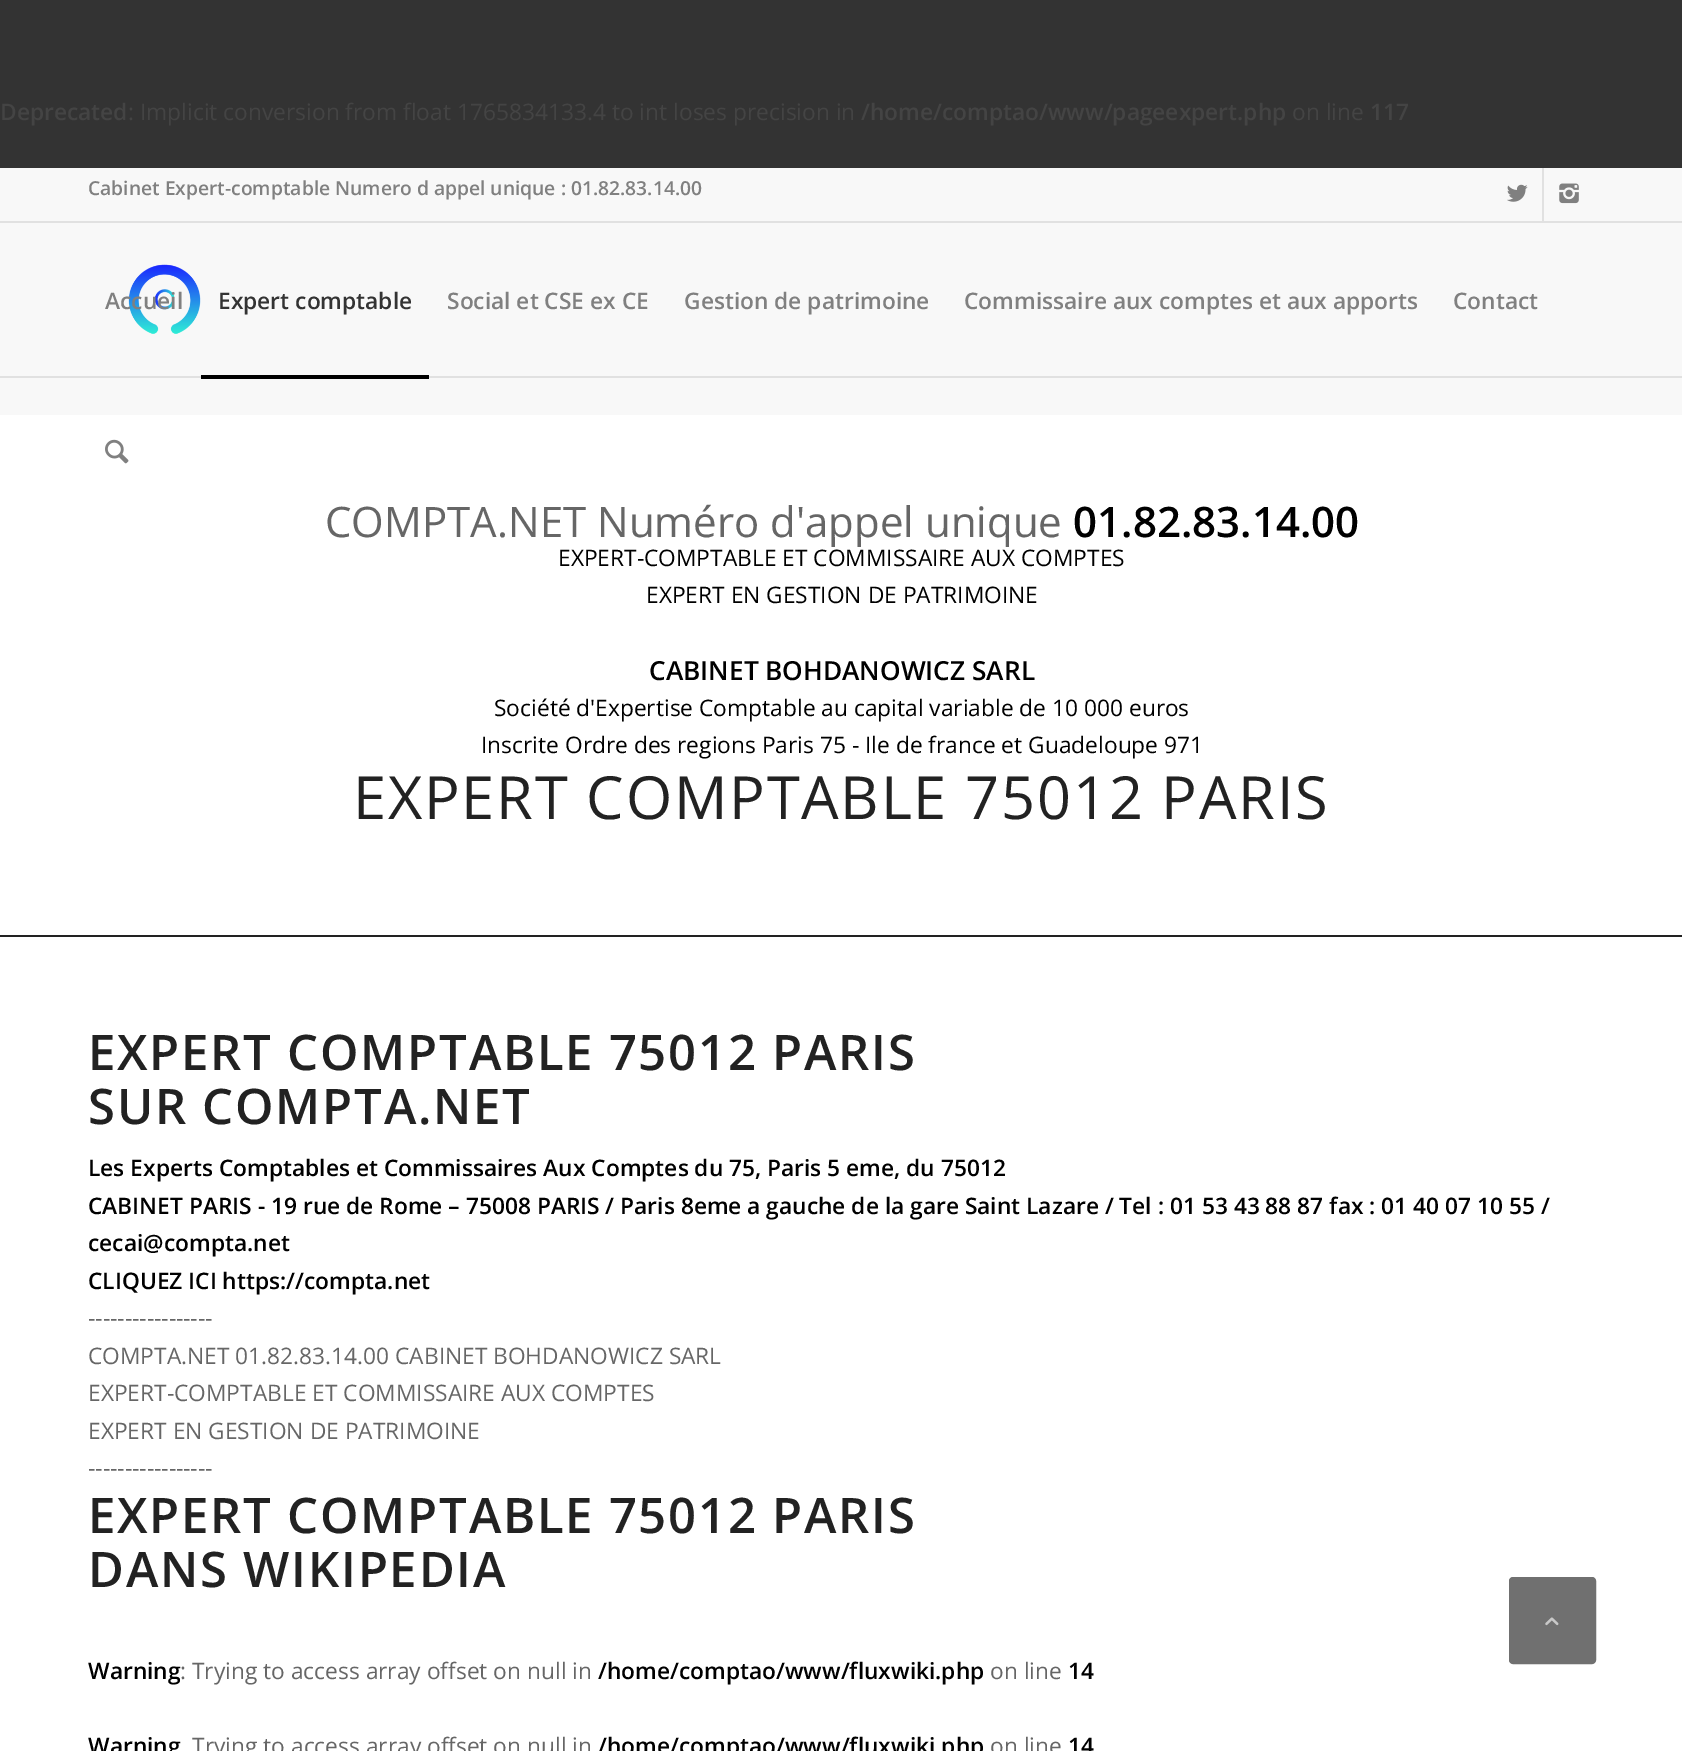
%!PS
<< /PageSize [1682 1751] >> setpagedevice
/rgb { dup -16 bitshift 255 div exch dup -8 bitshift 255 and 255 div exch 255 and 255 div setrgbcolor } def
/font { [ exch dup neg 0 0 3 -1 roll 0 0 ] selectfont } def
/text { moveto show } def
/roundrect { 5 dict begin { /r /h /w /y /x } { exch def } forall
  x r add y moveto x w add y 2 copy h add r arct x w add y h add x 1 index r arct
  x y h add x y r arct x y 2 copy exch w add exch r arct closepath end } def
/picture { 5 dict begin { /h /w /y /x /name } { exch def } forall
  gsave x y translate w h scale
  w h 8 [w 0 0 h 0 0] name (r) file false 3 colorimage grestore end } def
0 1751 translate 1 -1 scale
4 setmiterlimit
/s1 { /OpenSans-SemiBold 22.75 font 16#444444 rgb } def
/s2 { /OpenSans-Regular 22.75 font 16#444444 rgb } def
/s3 { /OpenSans-SemiBold 19.25 font 16#808080 rgb } def
/s4 { /OpenSans-SemiBold 22.75 font 16#808080 rgb } def
/s5 { /OpenSans-SemiBold 22.75 font 16#333333 rgb } def
/s6 { /OpenSans-Regular 42 font 16#666666 rgb } def
/s7 { /OpenSans-SemiBold 42 font 16#000000 rgb } def
/s8 { /OpenSans-Regular 22.75 font 16#000000 rgb } def
/s9 { /OpenSans-SemiBold 26.25 font 16#000000 rgb } def
/s10 { /OpenSans-SemiBold 22.75 font 16#000000 rgb } def
/s11 { /OpenSans-Regular 22.75 font 16#666666 rgb } def
16#333333 rgb
0 0 1682 1751 rectfill
s1
(Deprecated) 0 120 text
s2
(: Implicit conversion from float 1765834133.4 to int loses precision in) 128 120 text
s1
(/home/comptao/www/pageexpert.php) 861 120 text
s2
(on line) 1292 120 text
s1
(117) 1370 120 text
16#F8F8F8 rgb
0 168 1682 53 rectfill
16#E1E1E1 rgb
0 221 1682 2 rectfill
s3
(Cabinet Expert-comptable Numero d appel unique : 01.82.83.14.00) 88 195 text
16#E1E1E1 rgb
1542 168 2 53 rectfill
(pic1.raw) 1507 184 21 18 picture
(pic2.raw) 1559 183 20 21 picture
16#F8F8F8 rgb
0 223 1682 153 rectfill
16#E1E1E1 rgb
0 376 1682 2 rectfill
(pic3.raw) 128 264 73 70 picture
s4
(Accueil) 105 309 text
s5
(Expert comptable) 218 309 text
16#F8F8F8 rgb
0 378 1682 37 rectfill
16#000000 rgb
201 375 228 4 rectfill
s4
(Social et CSE ex CE) 447 309 text
(Gestion de patrimoine) 684 309 text
(Commissaire aux comptes et aux apports) 964 309 text
(Contact) 1453 309 text
16#FFFFFF rgb
0 415 1682 520 rectfill
(pic4.raw) 105 439 24 25 picture
s6
(COMPTA.NET Numéro d'appel unique) 325 537 text
s7
(01.82.83.14.00) 1073 537 text
s8
(EXPERT-COMPTABLE ET COMMISSAIRE AUX COMPTES) 558 566 text
(EXPERT EN GESTION DE PATRIMOINE) 646 603 text
s9
(CABINET BOHDANOWICZ SARL) 649 680 text
s8
(Société d'Expertise Comptable au capital variable de 10 000 euros) 494 716 text
(Inscrite Ordre des regions Paris 75 - Ile de france et Guadeloupe 971) 481 753 text
/OpenSans-Regular 59.5 font
16#222222 rgb
353 819 moveto 1.75 0 (EXPERT COMPTABLE 75012 PARIS) ashow
16#FFFFFF rgb
0 937 1682 814 rectfill
16#222222 rgb
0 935 1682 2 rectfill
/OpenSans-SemiBold 49 font
88 1070 moveto 1.75 0 (EXPERT COMPTABLE 75012 PARIS) ashow
88 1124 moveto 1.75 0 (SUR COMPTA.NET) ashow
s10
(Les Experts Comptables et Commissaires Aux Comptes du 75, Paris 5 eme, du 75012) 88 1176 text
(CABINET PARIS - 19 rue de Rome – 75008 PARIS / Paris 8eme a gauche de la gare Saint Lazare / Tel : 01 53 43 88 87 fax : 01 40 07 10 55 /) 88 1214 text
(cecai@compta.net) 88 1251 text
(CLIQUEZ ICI https://compta.net) 88 1289 text
s11
(-----------------) 88 1326 text
(COMPTA.NET 01.82.83.14.00 CABINET BOHDANOWICZ SARL) 88 1364 text
(EXPERT-COMPTABLE ET COMMISSAIRE AUX COMPTES) 88 1401 text
(EXPERT EN GESTION DE PATRIMOINE) 88 1439 text
(-----------------) 88 1476 text
/OpenSans-SemiBold 49 font
16#222222 rgb
88 1533 moveto 1.75 0 (EXPERT COMPTABLE 75012 PARIS) ashow
88 1587 moveto 1.75 0 (DANS WIKIPEDIA) ashow
s10
(Warning) 88 1679 text
s11
(: Trying to access array offset on null in) 180 1679 text
s10
(/home/comptao/www/fluxwiki.php) 598 1679 text
s11
(on line) 990 1679 text
s10
(14) 1068 1679 text
(Warning) 88 1754 text
s11
(Trying to access array offset on null in) 192 1754 text
s10
(/home/comptao/www/fluxwiki.php) 598 1754 text
s11
(on line) 990 1754 text
s10
(14) 1068 1754 text
16#707070 rgb
1510 1578 85 85 3 roundrect gsave fill grestore
2 setlinewidth
stroke
(pic5.raw) 1545 1617 14 9 picture
showpage
